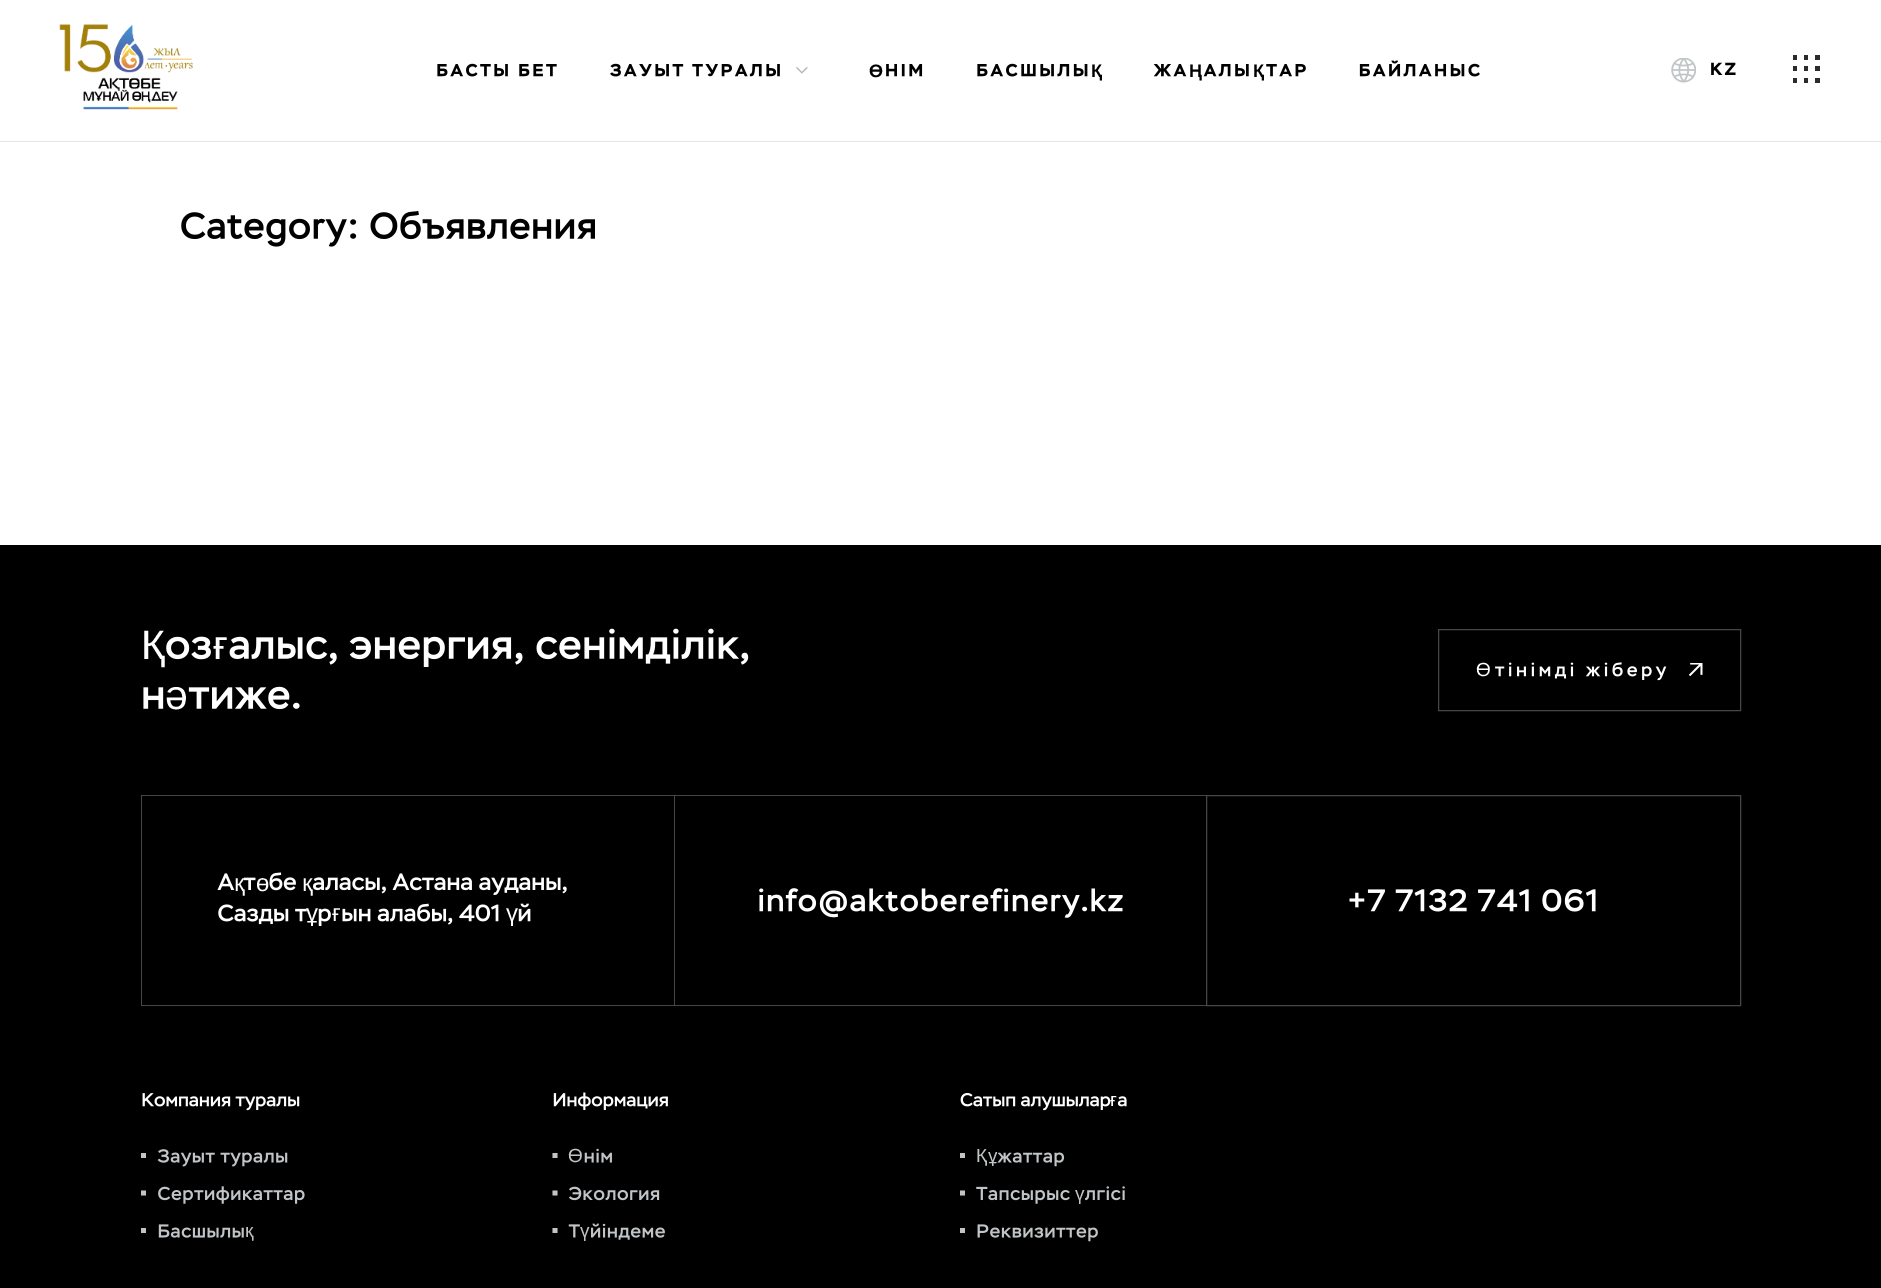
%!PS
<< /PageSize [1881 1288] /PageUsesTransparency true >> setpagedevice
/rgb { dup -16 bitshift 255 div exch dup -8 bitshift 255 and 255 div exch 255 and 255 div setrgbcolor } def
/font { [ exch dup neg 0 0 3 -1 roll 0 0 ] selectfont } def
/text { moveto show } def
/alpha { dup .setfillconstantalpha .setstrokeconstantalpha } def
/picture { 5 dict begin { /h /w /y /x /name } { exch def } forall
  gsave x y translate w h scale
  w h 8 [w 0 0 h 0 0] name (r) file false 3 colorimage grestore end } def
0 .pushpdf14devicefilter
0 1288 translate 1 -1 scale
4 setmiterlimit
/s1 { /LiberationSans-Regular 24 font 16#FFFFFF rgb } def
/s2 { /LiberationSans-Regular 19 font 16#FFFFFF rgb } def
16#FFFFFF rgb
0 0 1881 1288 rectfill
16#E5E5E5 rgb
0 141 1881 1 rectfill
(pic1.raw) 59 24 134 86 picture
(pic2.raw) 437 63 120 14 picture
(pic3.raw) 610 63 170 14 picture
(pic4.raw) 796 67 12 7 picture
/LiberationSans-Bold 18 font
16#000000 rgb
869 77 moveto 2 0 (Ө) ashow
(pic5.raw) 886 64 37 13 picture
(pic6.raw) 977 63 111 14 picture
1091 77 moveto 2 0 (Қ) ashow
(pic7.raw) 1153 64 34 13 picture
1189 77 moveto 2 0 (Ң) ashow
(pic8.raw) 1203 64 46 13 picture
1253 77 moveto 2 0 (Қ) ashow
(pic9.raw) 1266 64 40 13 picture
(pic10.raw) 1359 60 121 17 picture
(pic11.raw) 1671 58 25 25 picture
(pic12.raw) 1711 62 25 13 picture
(pic13.raw) 1793 55 27 28 picture
(pic14.raw) 181 210 414 37 picture
0 545 1881 743 rectfill
/LiberationSans-Regular 41 font
16#FFFFFF rgb
141 659 moveto 1 0 (Қ) ashow
(pic15.raw) 166 636 45 24 picture
213 659 moveto 1 0 (ғ) ashow
(pic16.raw) 229 628 520 39 picture
(pic17.raw) 143 687 21 22 picture
165 709 moveto 1 0 (ә) ashow
(pic18.raw) 188 686 112 24 picture
16#454647 rgb
1438.5 629.5 302 81 rectstroke
/LiberationSans-Regular 19 font
16#FFFFFF rgb
1476 676 moveto 4 0 (Ө) ashow
(pic19.raw) 1495 662 172 19 picture
(pic20.raw) 1689 663 14 13 picture
16#454647 rgb
141 795 moveto 674 795 lineto 674 796 lineto 142 796 lineto closepath fill
674 1006 moveto 141 1006 lineto 142 1005 lineto 674 1005 lineto closepath fill
0.3 alpha
16#E6E9EB rgb
141 1006 moveto 141 795 lineto 142 796 lineto 142 1005 lineto closepath fill
1 alpha
(pic21.raw) 217 873 18 17 picture
(pic22.raw) 243 877 13 13 picture
s1
(қ) 234 891 text
(ө) 256 891 text
(pic23.raw) 269 872 27 19 picture
(қ) 302 891 text
(pic24.raw) 313 873 254 22 picture
(pic25.raw) 218 904 89 21 picture
(ұ) 306 921 text
(pic26.raw) 318 908 13 18 picture
(ғ) 332 921 text
(pic27.raw) 342 903 157 22 picture
(ү) 506 921 text
(pic28.raw) 518 903 13 19 picture
16#454647 rgb
674 795 moveto 1206 795 lineto 1206 796 lineto 675 796 lineto closepath fill
1206 1006 moveto 674 1006 lineto 675 1005 lineto 1206 1005 lineto closepath fill
0.3 alpha
16#E6E9EB rgb
674 1006 moveto 674 795 lineto 675 796 lineto 675 1005 lineto closepath fill
1 alpha
(pic29.raw) 759 888 364 30 picture
16#454647 rgb
1206.5 795.5 534 210 rectstroke
(pic30.raw) 1349 889 247 23 picture
(pic31.raw) 142 1093 158 18 picture
16#C2C5C7 rgb
146 1158 moveto 141 1158 lineto 141 1153 lineto 146 1153 lineto closepath fill
(pic32.raw) 157 1149 131 18 picture
146 1195.5 moveto 141 1195.5 lineto 141 1190.5 lineto 146 1190.5 lineto closepath fill
(pic33.raw) 158 1186 147 18 picture
146 1233 moveto 141 1233 lineto 141 1228 lineto 146 1228 lineto closepath fill
(pic34.raw) 158 1224 86 14 picture
/LiberationSans-Regular 19 font
245 1237 moveto 1 0 (қ) ashow
(pic35.raw) 553 1092 115 18 picture
557.5 1158 moveto 552.5 1158 lineto 552.5 1153 lineto 557.5 1153 lineto closepath fill
568 1162 moveto 1 0 (Ө) ashow
(pic36.raw) 584 1148 28 15 picture
557.5 1195.5 moveto 552.5 1195.5 lineto 552.5 1190.5 lineto 557.5 1190.5 lineto closepath fill
(pic37.raw) 569 1186 91 15 picture
557.5 1233 moveto 552.5 1233 lineto 552.5 1228 lineto 557.5 1228 lineto closepath fill
(pic38.raw) 568 1224 12 14 picture
580 1237 moveto 1 0 (ү) ashow
(pic39.raw) 591 1223 74 17 picture
(pic40.raw) 960 1093 151 18 picture
s2
(ғ) 1110 1106 text
(pic41.raw) 1117 1096 10 11 picture
16#C2C5C7 rgb
965 1158 moveto 960 1158 lineto 960 1153 lineto 965 1153 lineto closepath fill
976 1162 moveto 1 0 (Құ) ashow
(pic42.raw) 997 1152 68 15 picture
965 1195.5 moveto 960 1195.5 lineto 960 1190.5 lineto 965 1190.5 lineto closepath fill
(pic43.raw) 976 1186 94 18 picture
1075 1200 moveto 1 0 (ү) ashow
(pic44.raw) 1085 1186 40 15 picture
965 1233 moveto 960 1233 lineto 960 1228 lineto 965 1228 lineto closepath fill
(pic45.raw) 977 1224 121 18 picture
.poppdf14devicefilter showpage
